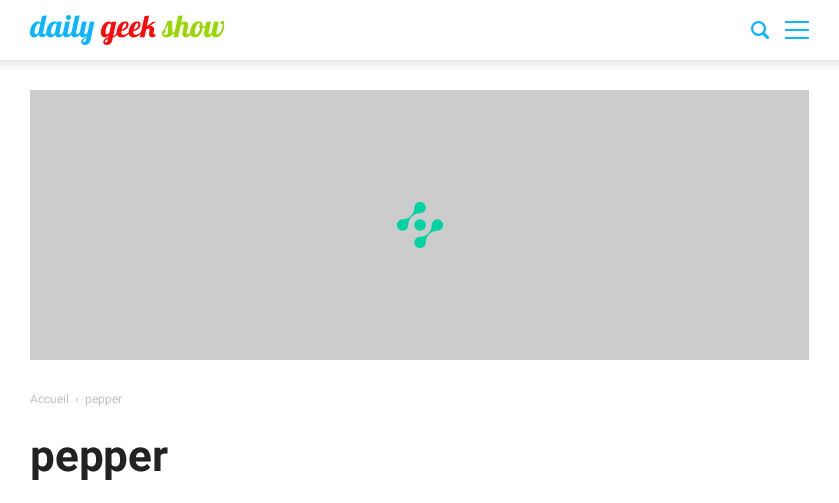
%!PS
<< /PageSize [839 503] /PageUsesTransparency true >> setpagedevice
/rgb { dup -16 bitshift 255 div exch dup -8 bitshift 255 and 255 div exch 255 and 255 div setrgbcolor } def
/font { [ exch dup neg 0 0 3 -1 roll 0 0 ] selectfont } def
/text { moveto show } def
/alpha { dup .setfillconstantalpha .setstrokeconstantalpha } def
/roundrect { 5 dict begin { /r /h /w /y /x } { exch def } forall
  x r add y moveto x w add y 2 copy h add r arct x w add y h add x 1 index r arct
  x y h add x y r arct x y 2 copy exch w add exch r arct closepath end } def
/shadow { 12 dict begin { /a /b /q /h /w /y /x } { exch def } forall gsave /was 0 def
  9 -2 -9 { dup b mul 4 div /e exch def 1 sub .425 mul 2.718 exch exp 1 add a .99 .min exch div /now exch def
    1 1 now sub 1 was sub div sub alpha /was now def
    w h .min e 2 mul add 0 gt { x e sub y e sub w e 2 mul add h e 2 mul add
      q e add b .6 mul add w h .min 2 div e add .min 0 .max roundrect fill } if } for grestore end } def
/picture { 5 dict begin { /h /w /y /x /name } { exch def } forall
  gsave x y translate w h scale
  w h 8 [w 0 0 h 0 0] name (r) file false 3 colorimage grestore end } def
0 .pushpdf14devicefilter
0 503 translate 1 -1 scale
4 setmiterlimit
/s1 { /Roboto-Regular 12 font 16#C3C3C3 rgb } def
/s2 { /Roboto-Bold 44 font 16#222222 rgb } def
16#FFFFFF rgb
0 0 839 503 rectfill
gsave
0 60 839 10 rectclip
16#222222 rgb
0 0 839 60 0 7.5 0.2 shadow
grestore
(pic1.raw) 30 15 194 30 picture
(pic2.raw) 751 21 18 18 picture
16#08B5FF rgb
785 29 24 2 1 roundrect fill
785 21 24 2 1 roundrect fill
785 37 24 2 1 roundrect fill
16#CCCCCC rgb
30 90 779 270 rectfill
(pic3.raw) 396 201 48 48 picture
s1
(Accueil) 30 403 text
(›) 75 403 text
(pepper) 85 403 text
s2
(pepper) 30 471 text
.poppdf14devicefilter showpage
